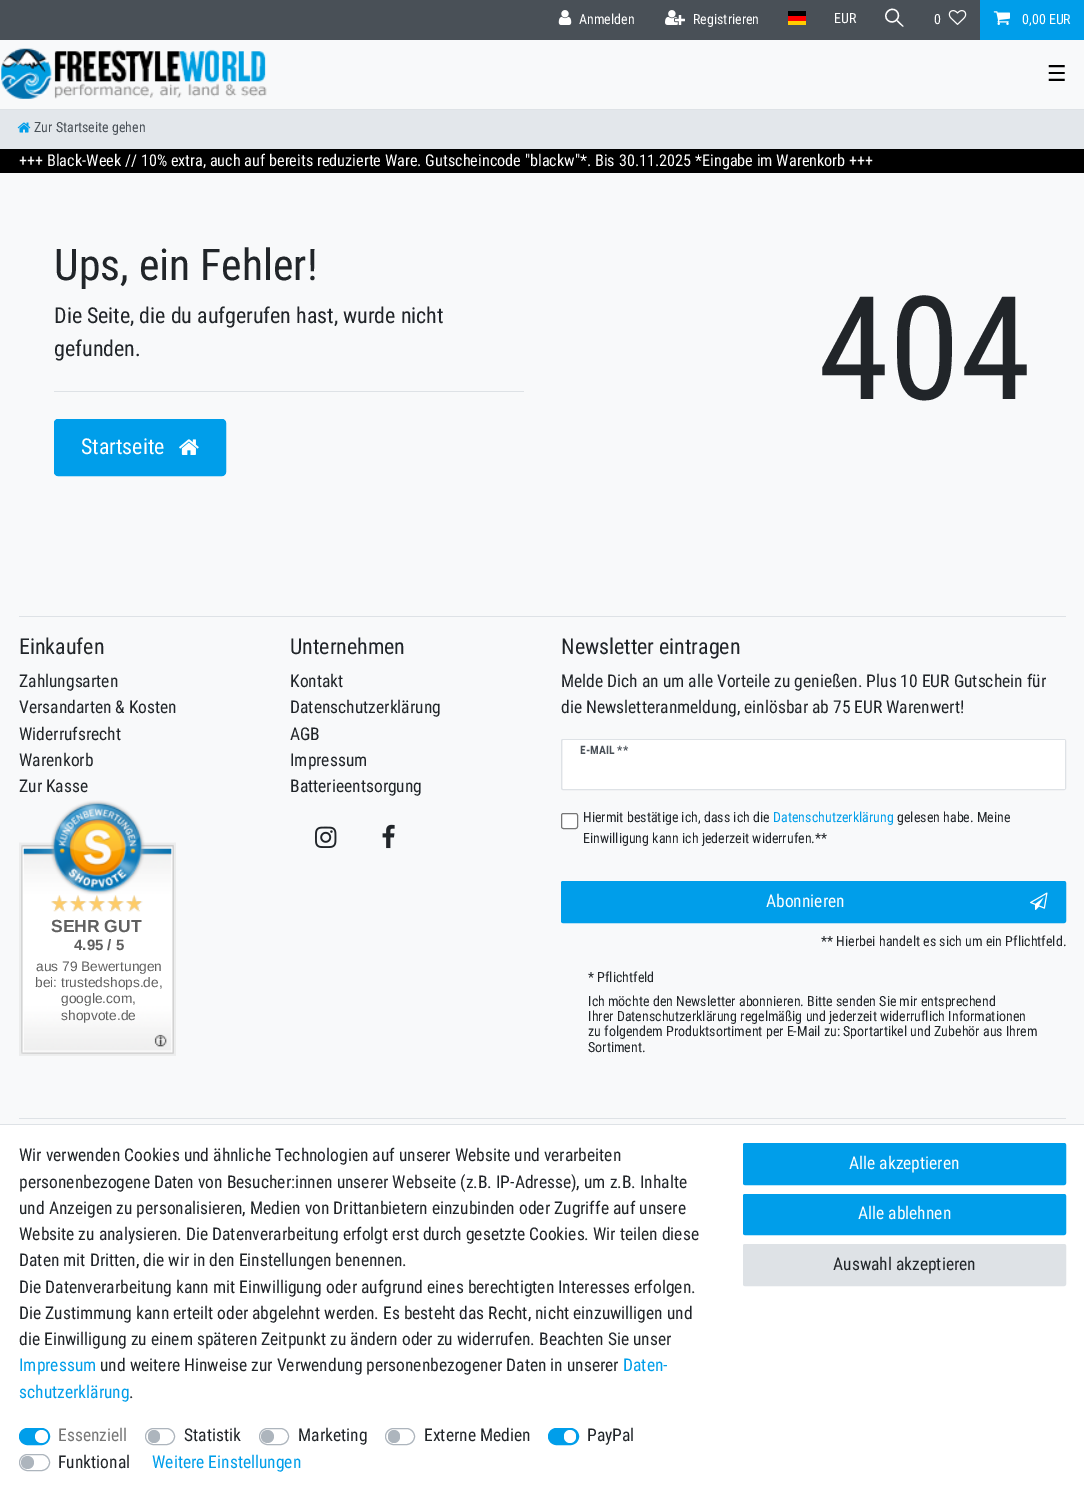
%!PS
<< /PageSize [1084 1492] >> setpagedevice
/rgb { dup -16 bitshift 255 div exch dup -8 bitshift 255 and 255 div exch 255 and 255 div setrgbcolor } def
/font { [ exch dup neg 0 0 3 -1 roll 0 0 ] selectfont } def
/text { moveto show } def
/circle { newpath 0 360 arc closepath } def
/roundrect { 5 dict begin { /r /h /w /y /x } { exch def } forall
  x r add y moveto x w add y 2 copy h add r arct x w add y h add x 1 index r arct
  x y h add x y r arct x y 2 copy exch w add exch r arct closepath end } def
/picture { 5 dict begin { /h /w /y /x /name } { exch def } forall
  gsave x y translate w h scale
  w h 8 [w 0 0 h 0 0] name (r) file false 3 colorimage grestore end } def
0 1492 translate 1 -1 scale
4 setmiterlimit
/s1 { /RobotoCondensed-Regular 14 font 16#FFFFFF rgb } def
/s2 { /DejaVuSans-Regular 21.9 font 16#000000 rgb } def
/s3 { /RobotoCondensed-Regular 14 font 16#495057 rgb } def
/s4 { /RobotoCondensed-Regular 16.25 font 16#FFFFFF rgb } def
/s5 { /RobotoCondensed-Regular 43.75 font 16#212529 rgb } def
/s6 { /RobotoCondensed-Regular 21.9 font 16#212529 rgb } def
/s7 { /RobotoCondensed-Regular 21.9 font 16#FFFFFF rgb } def
/s8 { /RobotoCondensed-Regular 144 font 16#212529 rgb } def
/s9 { /RobotoCondensed-Regular 17.5 font 16#212529 rgb } def
/s10 { /LiberationSans-Bold 17.5 font 16#606060 rgb } def
/s11 { /LiberationSans-Bold 15 font 16#606060 rgb } def
/s12 { /LiberationSans-Regular 13.75 font 16#606060 rgb } def
/s13 { /RobotoCondensed-Regular 14 font 16#212529 rgb } def
/s14 { /RobotoCondensed-Regular 14 font 16#009EEA rgb } def
/s15 { /RobotoCondensed-Regular 17.5 font 16#FFFFFF rgb } def
/s16 { /RobotoCondensed-Regular 17.5 font 16#009EEA rgb } def
/s17 { /RobotoCondensed-Regular 17.5 font 16#767676 rgb } def
16#F8F9FA rgb
0 0 1084 1492 rectfill
16#495057 rgb
0 0 980 40 rectfill
(pic1.raw) 558 10 14 15 picture
s1
(Anmelden) 579 24 text
(pic2.raw) 665 10 20 15 picture
(Registrieren) 693 24 text
16#FFCC00 rgb
788 21 18 4 rectfill
16#000000 rgb
788 11 18 5 rectfill
16#FF0000 rgb
788 16 18 5 rectfill
s1
(EUR) 834 23 text
902.5 26.5 moveto 900.5 25 889.5 14.5 890 13.5 curveto 890.5 13.5 lineto 903.5 26 lineto 903.5 26.5 903 27 902.5 26.5 curveto closepath fill
16#495057 rgb
887.5 20.5 moveto 881 14 890.5 4.5 897 11 curveto 903.5 17 893.5 27 887.5 20.5 curveto closepath fill
16#FFFFFF rgb
1.3 setlinewidth
887.5 20 moveto 882 14.5 890.5 5.5 896.5 11 curveto 902.5 17 893.5 26 887.5 20 curveto closepath stroke
(0) 934 24 text
(pic3.raw) 948 10 19 15 picture
16#009EEA rgb
980 0 104 40 rectfill
(pic4.raw) 993 11 17 14 picture
s1
(0,00 EUR) 1022 24 text
16#DEE2E6 rgb
0 109 1084 1 rectfill
(pic5.raw) 1 48 266 51 picture
s2
(☰) 1047 81 text
16#E3E7EB rgb
0 110 1084 39 rectfill
(pic6.raw) 17 122 14 11 picture
s3
(Zur Startseite gehen) 34 132 text
16#000000 rgb
0 149 1084 24 rectfill
s4
(+++ Black-Week // 10% extra, auch auf bereits reduzierte Ware. Gutscheincode "blackw"*. Bis 30.11.2025 *Eingabe im Warenkorb +++) 19 166 text
s5
(Ups, ein Fehler!) 54 280 text
s6
(Die Seite, die du aufgerufen hast, wurde nicht) 54 323 text
(gefunden.) 54 356 text
16#DEE2E6 rgb
54 391 470 1 rectfill
16#009EEA rgb
54.5 419.5 171 56 3.5 roundrect gsave fill grestore
1 setlinewidth
stroke
s7
(Startseite) 81 454 text
(pic7.raw) 179 439 20 16 picture
s8
(404) 818 399 text
16#DEE2E6 rgb
19 616 1047 1 rectfill
s6
(Einkaufen) 19 654 text
s9
(Zahlungsarten) 19 687 text
(Versandarten & Kosten) 19 713 text
(Widerrufsrecht) 19 740 text
(Warenkorb) 19 766 text
(Zur Kasse) 19 792 text
(pic8.raw) 19 800 157 256 picture
(pic9.raw) 51 895 91 17 picture
s10
(SEHR GUT) 51 932 text
s11
(4.95 / 5) 74 950 text
s12
(aus 79 Bewertungen) 36 971 text
(bei: trustedshops.de,) 35 987 text
(google.com,) 61 1003 text
(shopvote.de) 61 1020 text
s6
(Unternehmen) 290 654 text
s9
(Kontakt) 290 687 text
(Datenschutzerklärung) 290 713 text
(AGB) 290 740 text
(Impressum) 290 766 text
(Batterieentsorgung) 290 792 text
(pic10.raw) 315 826 22 22 picture
(pic11.raw) 382 824 13 25 picture
s6
(Newsletter eintragen) 561 654 text
s9
(Melde Dich an um alle Vorteile zu genießen. Plus 10 EUR Gutschein für) 561 687 text
(die Newsletteranmeldung, einlösbar ab 75 EUR Warenwert!) 561 713 text
16#DEE2E6 rgb
561.5 739.5 504 50 1.5 roundrect stroke
16#FFFFFF rgb
563 740 502 49 0.5 roundrect fill
/RobotoCondensed-Bold 11.5 font
16#495057 rgb
580 754 moveto 0.1 0 (E-MAIL **) ashow
16#FFFFFF rgb
561.5 813.5 16 15 2 roundrect gsave fill grestore
16#767676 rgb
stroke
s13
(Hiermit bestätige ich, dass ich die) 583 822 text
s14
(Datenschutzerklärung) 773 822 text
s13
(gelesen habe. Meine) 897 822 text
(Einwilligung kann ich jederzeit widerrufen.**) 583 843 text
16#009EEA rgb
561.5 881.5 504 41 1.5 roundrect gsave fill grestore
stroke
s15
(Abonnieren) 766 907 text
(pic12.raw) 1030 892 18 18 picture
s13
(** Hierbei handelt es sich um ein Pflichtfeld.) 821 946 text
(* Pflichtfeld) 588 982 text
(Ich möchte den Newsletter abonnieren. Bitte senden Sie mir entsprechend) 588 1006 text
(Ihrer Datenschutzerklärung regelmäßig und jederzeit widerruflich Informationen) 588 1021 text
(zu folgendem Produktsortiment per E-Mail zu: Sportartikel und Zubehör aus Ihrem) 588 1036 text
(Sortiment.) 588 1052 text
16#DEE2E6 rgb
19 1118 1047 1 rectfill
16#FFFFFF rgb
0 1125 1084 367 rectfill
16#DEE2E6 rgb
0 1124 1084 1 rectfill
s9
(Wir verwenden Cookies und ähnliche Technologien auf unserer Website und verarbeiten) 19 1161 text
(personenbezogene Daten von Besucher:innen unserer Webseite \(z.B. IP-Adresse\), um z.B. Inhalte) 19 1188 text
(und Anzeigen zu personalisieren, Medien von Drittanbietern einzubinden oder Zugriffe auf unsere) 19 1214 text
(Website zu analysieren. Die Datenverarbeitung erfolgt erst durch gesetzte Cookies. Wir teilen diese) 19 1240 text
(Daten mit Dritten, die wir in den Einstellungen benennen.) 19 1266 text
(Die Datenverarbeitung kann mit Einwilligung oder aufgrund eines berechtigten Interesses erfolgen.) 19 1293 text
(Die Zustimmung kann erteilt oder abgelehnt werden. Es besteht das Recht, nicht einzuwilligen und) 19 1319 text
(die Einwilligung zu einem späteren Zeitpunkt zu ändern oder zu widerrufen. Beachten Sie unser) 19 1345 text
s16
(Impressum) 19 1371 text
s9
(und weitere Hinweise zur Verwendung personenbezogener Daten in unserer) 100 1371 text
s16
(Daten-) 623 1371 text
(schutzerklärung) 19 1398 text
s9
(.) 129 1398 text
16#009EEA rgb
19.5 1428.5 30 16 8 roundrect gsave fill grestore
stroke
s17
(Essenziell) 58 1441 text
16#FFFFFF rgb
41.5 1436.5 6.5 circle fill
16#ADB5BD rgb
145.5 1428.5 29 16 8 roundrect stroke
s9
(Statistik) 184 1441 text
16#ADB5BD rgb
148 1430 12 13 6 roundrect fill
259.5 1428.5 29 16 8 roundrect stroke
s9
(Marketing) 298 1441 text
16#ADB5BD rgb
267.5 1436.5 6.5 circle fill
385.5 1428.5 29 16 8 roundrect stroke
s9
(Externe Medien) 424 1441 text
16#ADB5BD rgb
388 1430 12 13 6 roundrect fill
16#009EEA rgb
548.5 1428.5 30 16 8 roundrect gsave fill grestore
stroke
s9
(PayPal) 587 1441 text
16#FFFFFF rgb
564 1430 12 13 6 roundrect fill
16#ADB5BD rgb
19.5 1454.5 30 16 8 roundrect stroke
s9
(Funktional) 58 1468 text
16#ADB5BD rgb
27.5 1462.5 6.5 circle fill
s16
(Weitere Einstellungen) 152 1468 text
743.5 1143.5 322 41 1.5 roundrect gsave fill grestore
stroke
s15
(Alle akzeptieren) 849 1169 text
16#009EEA rgb
743.5 1194.5 322 40 1.5 roundrect gsave fill grestore
stroke
s15
(Alle ablehnen) 858 1219 text
16#DEE2E6 rgb
743.5 1244.5 322 41 1.5 roundrect gsave fill grestore
stroke
s9
(Auswahl akzeptieren) 833 1270 text
showpage
